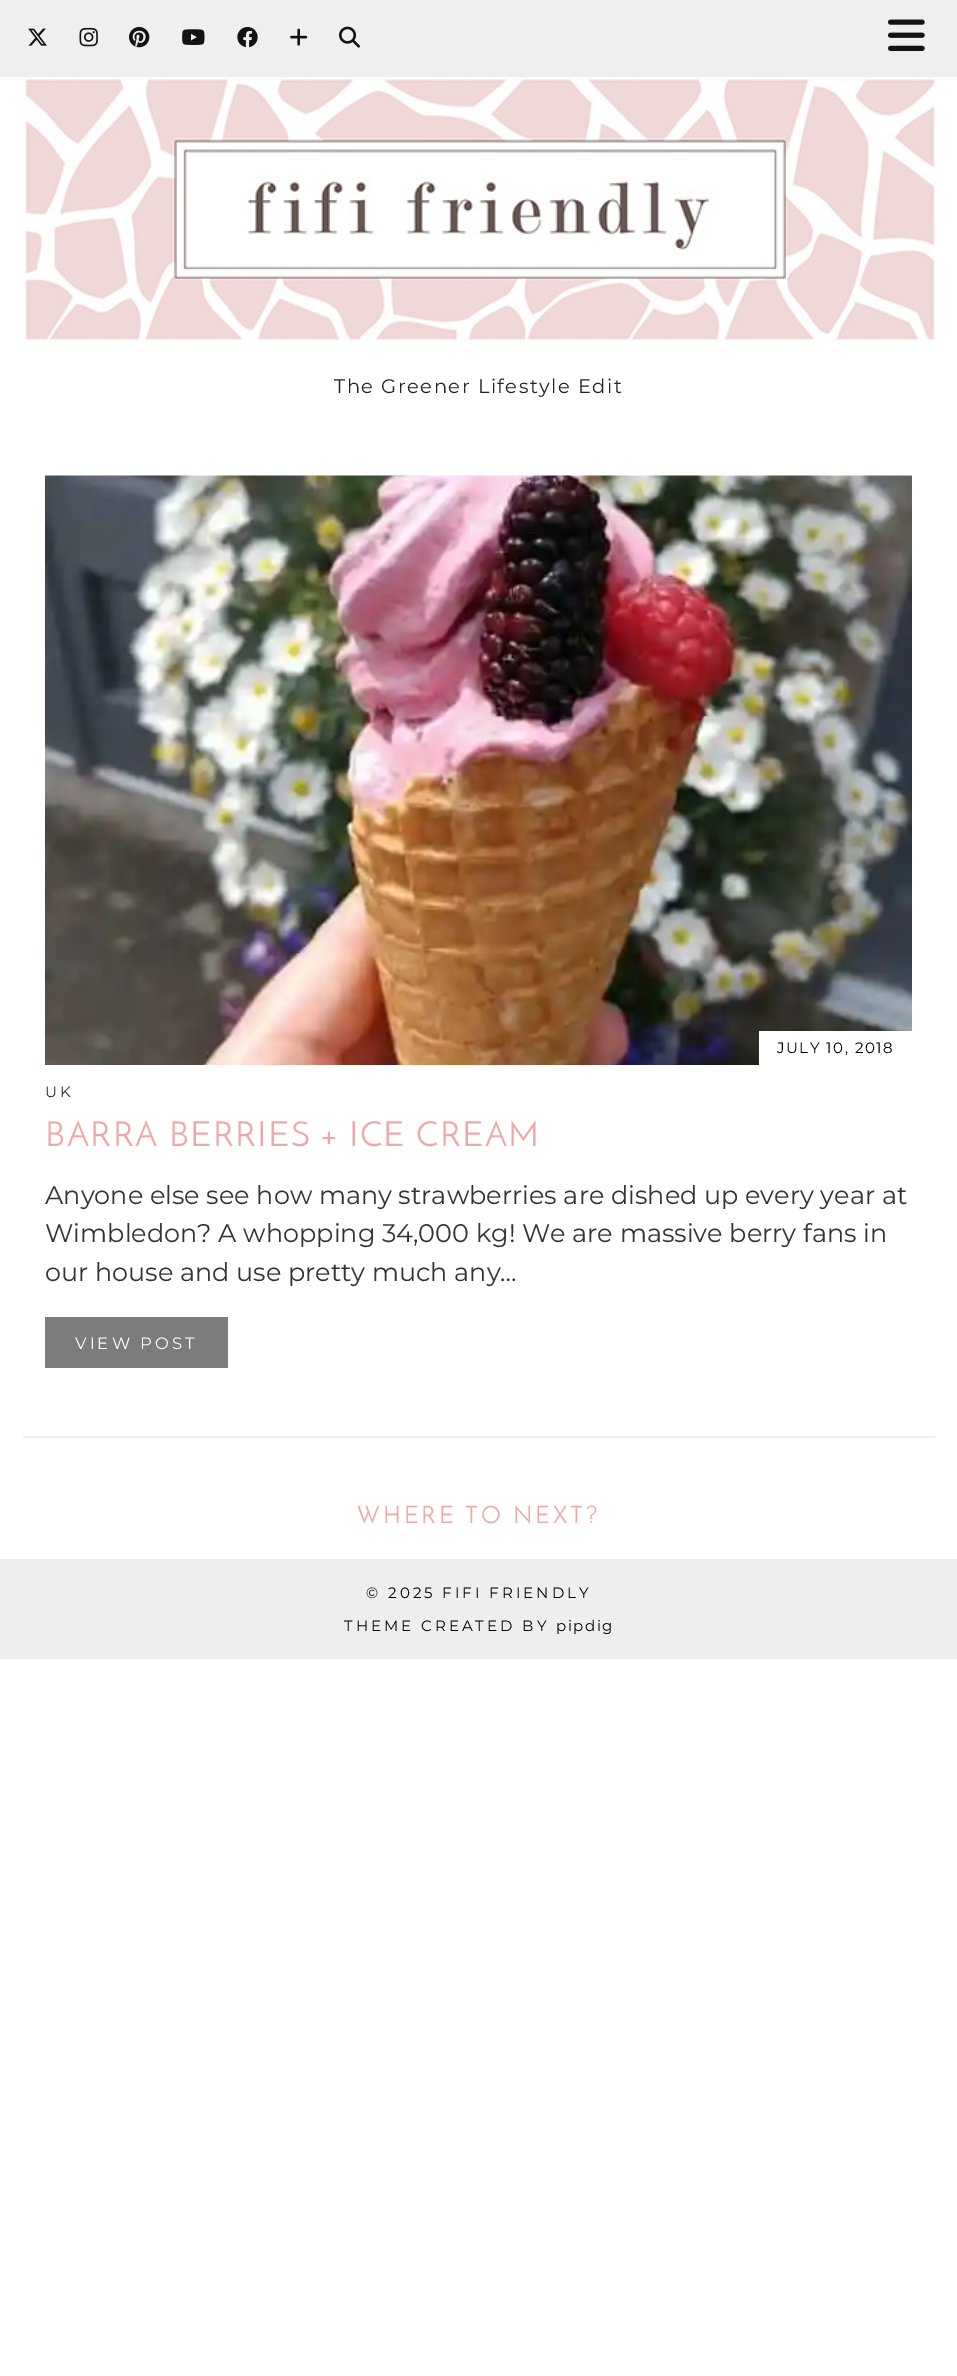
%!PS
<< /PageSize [957 2376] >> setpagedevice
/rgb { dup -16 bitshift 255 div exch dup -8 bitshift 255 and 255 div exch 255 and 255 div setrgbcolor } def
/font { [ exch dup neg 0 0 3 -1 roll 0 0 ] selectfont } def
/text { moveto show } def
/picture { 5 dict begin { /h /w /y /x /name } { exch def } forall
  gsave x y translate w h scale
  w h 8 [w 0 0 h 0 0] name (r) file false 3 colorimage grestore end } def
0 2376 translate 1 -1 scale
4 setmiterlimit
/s1 { /Montserrat-Thin 25.5 font 16#333333 rgb } def
16#FFFFFF rgb
0 0 957 2376 rectfill
16#EFEFEF rgb
0 0 957 77 rectfill
(pic1.raw) 28 28 19 18 picture
(pic2.raw) 79 27 19 20 picture
(pic3.raw) 129 26 21 22 picture
(pic4.raw) 182 29 23 16 picture
(pic5.raw) 237 26 21 22 picture
(pic6.raw) 290 28 18 18 picture
(pic7.raw) 339 26 21 22 picture
(pic8.raw) 888 19 37 32 picture
(pic9.raw) 23 77 912 265 picture
/Montserrat-Thin 19.5 font
16#222222 rgb
334 393 moveto 1.5 0 (The Greener Lifestyle Edit) ashow
16#EEEEEE rgb
23 1436 912 2 rectfill
(pic10.raw) 45 475 867 590 picture
16#FFFFFF rgb
759 1031 153 34 rectfill
/Montserrat-Thin 15 font
16#000000 rgb
777 1053 moveto 1.5 0 (JULY 10, 2018) ashow
16#222222 rgb
45 1097 moveto 3 0 (UK) ashow
/JosefinSans-Regular 34.5 font
16#EDA8A8 rgb
45 1146 moveto 1.5 0 (BARRA BERRIES + ICE CREAM) ashow
s1
(Anyone else see how many strawberries are dished up every year at) 45 1204 text
(Wimbledon? A whopping 34,000 kg! We are massive berry fans in) 45 1242 text
(our house and use pretty much any…) 45 1281 text
16#7C7C7C rgb
45 1317 183 51 rectfill
/Montserrat-Thin 16.5 font
16#FFFFFF rgb
75 1349 moveto 3 0 (VIEW POST) ashow
/JosefinSans-Regular 24 font
16#EDA8A8 rgb
357 1523 moveto 3 0 (WHERE TO NEXT?) ashow
16#EEEEEE rgb
0 1559 957 100 rectfill
/Montserrat-Thin 15 font
16#000000 rgb
366 1598 moveto 3 0 (© 2025 FIFI FRIENDLY) ashow
344 1631 moveto 3 0 (THEME CREATED BY) ashow
556 1631 moveto 1.5 0 (pipdig) ashow
showpage
